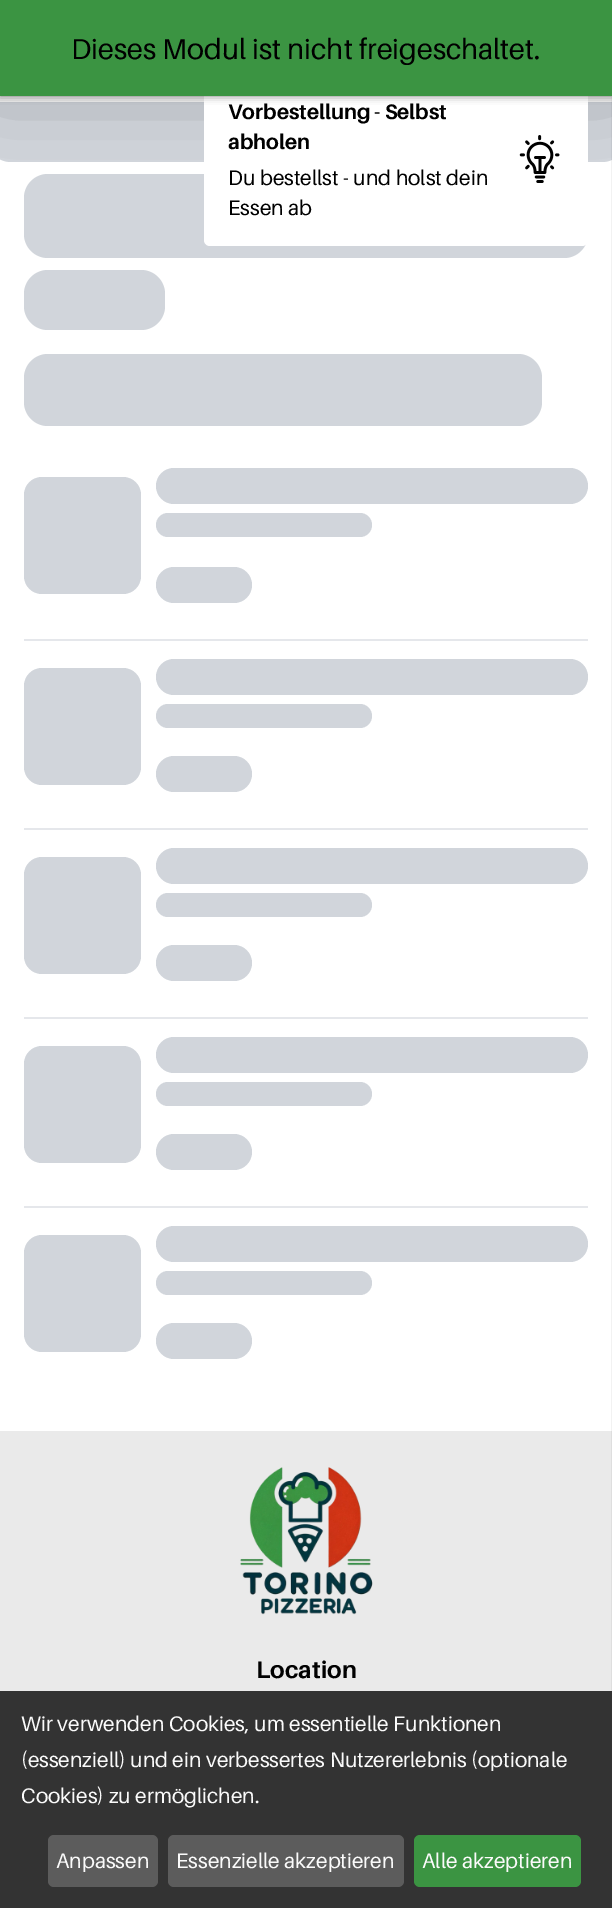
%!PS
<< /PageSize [612 1908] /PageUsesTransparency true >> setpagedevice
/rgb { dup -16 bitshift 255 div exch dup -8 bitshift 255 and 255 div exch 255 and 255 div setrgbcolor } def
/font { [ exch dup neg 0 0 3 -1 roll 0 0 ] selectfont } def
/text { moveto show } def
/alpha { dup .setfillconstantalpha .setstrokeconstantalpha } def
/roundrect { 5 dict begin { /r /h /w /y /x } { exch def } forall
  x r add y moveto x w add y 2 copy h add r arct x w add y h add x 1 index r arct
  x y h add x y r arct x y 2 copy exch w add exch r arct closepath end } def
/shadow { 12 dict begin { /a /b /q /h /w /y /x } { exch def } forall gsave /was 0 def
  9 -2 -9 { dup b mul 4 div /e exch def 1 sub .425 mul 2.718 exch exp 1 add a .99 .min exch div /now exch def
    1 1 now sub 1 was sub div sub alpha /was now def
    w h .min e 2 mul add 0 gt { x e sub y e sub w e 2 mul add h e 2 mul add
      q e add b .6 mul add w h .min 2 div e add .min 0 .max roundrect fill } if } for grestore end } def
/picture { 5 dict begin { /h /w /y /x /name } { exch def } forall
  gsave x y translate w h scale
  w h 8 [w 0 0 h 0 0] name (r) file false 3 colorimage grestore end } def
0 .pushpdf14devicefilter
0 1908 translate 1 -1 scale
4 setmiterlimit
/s1 { /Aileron-Regular 28.75 font 16#000000 rgb } def
/s2 { /Aileron-Bold 21 font 16#000000 rgb } def
/s3 { /Aileron-Regular 21 font 16#000000 rgb } def
/s4 { /Aileron-Bold 24 font 16#000000 rgb } def
/s5 { /Aileron-Regular 21 font 16#FAFAFA rgb } def
16#FFFFFF rgb
0 0 612 1908 rectfill
16#D1D5DB rgb
-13 -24 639 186 24 roundrect fill
24 174 564 84 24 roundrect fill
24 270 141 60 24 roundrect fill
24 354 518 72 24 roundrect fill
24 477 117 117 18 roundrect fill
156 468 432 36 18 roundrect fill
156 513 216 24 12 roundrect fill
156 567 96 36 18 roundrect fill
16#E5E7EB rgb
24 639 564 2 rectfill
16#D1D5DB rgb
24 668 117 117 18 roundrect fill
156 659 432 36 18 roundrect fill
156 704 216 24 12 roundrect fill
156 756 96 36 18 roundrect fill
16#E5E7EB rgb
24 828 564 2 rectfill
16#D1D5DB rgb
24 857 117 117 18 roundrect fill
156 848 432 36 18 roundrect fill
156 893 216 24 12 roundrect fill
156 945 96 36 18 roundrect fill
16#E5E7EB rgb
24 1017 564 2 rectfill
16#D1D5DB rgb
24 1046 117 117 18 roundrect fill
156 1037 432 36 18 roundrect fill
156 1082 216 24 12 roundrect fill
156 1134 96 36 18 roundrect fill
16#E5E7EB rgb
24 1206 564 2 rectfill
16#D1D5DB rgb
24 1235 117 117 18 roundrect fill
156 1226 432 36 18 roundrect fill
156 1271 216 24 12 roundrect fill
156 1323 96 36 18 roundrect fill
16#000000 rgb
0 -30 612 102 0 39 0.51 shadow
16#EAEAEA rgb
0 96 612 6 rectfill
16#FFFFFF rgb
204 72 384 174 6 roundrect fill
16#EAEAEA rgb
0 1431 612 260 rectfill
0.05 alpha
16#000000 rgb
2 setlinewidth
612 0 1 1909 rectstroke
1 alpha
0 0 612 96 0 4 0.5 shadow
16#3B9442 rgb
0 0 612 96 rectfill
s1
(Dieses Modul ist nicht freigeschaltet.) 71 59 text
s2
(Vorbestellung - Selbst) 228 119 text
(abholen) 228 149 text
s3
(Du bestellst - und holst dein) 228 185 text
(Essen ab) 228 215 text
(pic1.raw) 519 135 41 48 picture
(pic2.raw) 240 1467 133 148 picture
s4
(Location) 256 1678 text
16#333333 rgb
0 1691 612 217 rectfill
s5
(Wir verwenden Cookies, um essentielle Funktionen) 21 1731 text
(\(essenziell\) und ein verbessertes Nutzererlebnis \(optionale) 21 1767 text
(Cookies\) zu ermöglichen.) 21 1803 text
16#5C5C5C rgb
48 1835 110 52 6 roundrect fill
s5
(Anpassen) 56 1868 text
16#5C5C5C rgb
168 1835 236 52 6 roundrect fill
s5
(Essenzielle akzeptieren) 176 1868 text
16#3B9442 rgb
414 1835 167 52 6 roundrect fill
s5
(Alle akzeptieren) 422 1868 text
.poppdf14devicefilter showpage
